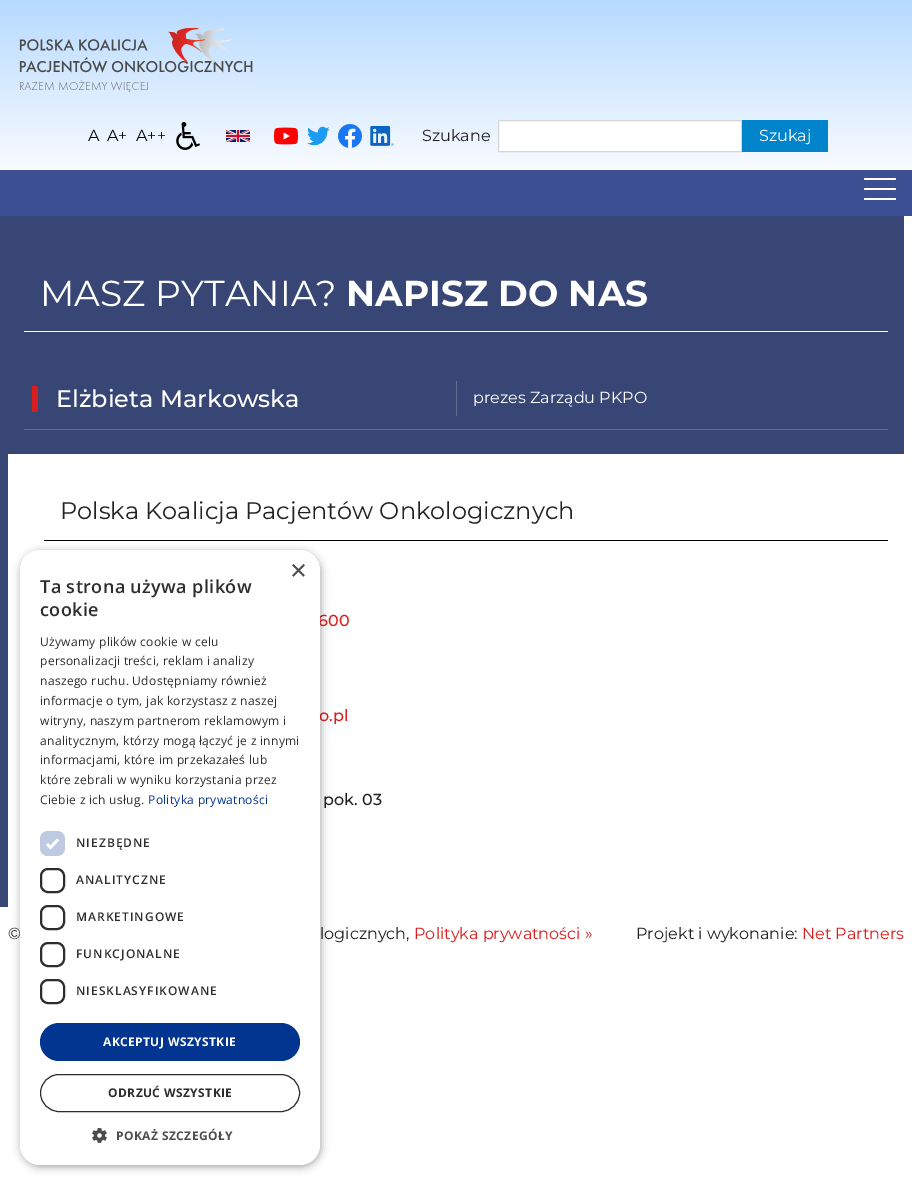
%!PS
<< /PageSize [912 1185] /PageUsesTransparency true >> setpagedevice
/rgb { dup -16 bitshift 255 div exch dup -8 bitshift 255 and 255 div exch 255 and 255 div setrgbcolor } def
/font { [ exch dup neg 0 0 3 -1 roll 0 0 ] selectfont } def
/text { moveto show } def
/alpha { dup .setfillconstantalpha .setstrokeconstantalpha } def
/roundrect { 5 dict begin { /r /h /w /y /x } { exch def } forall
  x r add y moveto x w add y 2 copy h add r arct x w add y h add x 1 index r arct
  x y h add x y r arct x y 2 copy exch w add exch r arct closepath end } def
/shadow { 12 dict begin { /a /b /q /h /w /y /x } { exch def } forall gsave /was 0 def
  9 -2 -9 { dup b mul 4 div /e exch def 1 sub .425 mul 2.718 exch exp 1 add a .99 .min exch div /now exch def
    1 1 now sub 1 was sub div sub alpha /was now def
    w h .min e 2 mul add 0 gt { x e sub y e sub w e 2 mul add h e 2 mul add
      q e add b .6 mul add w h .min 2 div e add .min 0 .max roundrect fill } if } for grestore end } def
/picture { 5 dict begin { /h /w /y /x /name } { exch def } forall
  gsave x y translate w h scale
  w h 8 [w 0 0 h 0 0] name (r) file false 3 colorimage grestore end } def
0 .pushpdf14devicefilter
0 1185 translate 1 -1 scale
4 setmiterlimit
/s1 { /Montserrat-Regular 16 font 16#000000 rgb } def
/s2 { /Montserrat-Regular 16 font 16#222222 rgb } def
/s3 { /Montserrat-Regular 16 font 16#FFFFFF rgb } def
/s4 { /Montserrat-Regular 36 font 16#FFFFFF rgb } def
/s5 { /Montserrat-Bold 36 font 16#FFFFFF rgb } def
/s6 { /Montserrat-Medium 24 font 16#FFFFFF rgb } def
/s7 { /Montserrat-Regular 24 font 16#222222 rgb } def
/s8 { /Montserrat-Medium 16 font 16#DA1E1D rgb } def
/s9 { /Montserrat-Medium 16 font 16#222222 rgb } def
/s10 { /LiberationSans-Regular 29 font 16#4D4D4D rgb } def
/s11 { /Montserrat-Regular 16 font 16#DA1E1D rgb } def
16#FFFFFF rgb
0 0 912 1185 rectfill
gsave 0 0 moveto 912 0 lineto 912 170 lineto 0 170 lineto closepath clip newpath
<< /ShadingType 2 /ColorSpace /DeviceRGB /Coords [456 0 456 170] /Extend [true true] /Function << /FunctionType 2 /Domain [0 1] /C0 [0.718 0.855 1] /C1 [0.973 0.984 1] /N 1 >> >> shfill grestore
(pic1.raw) 19 27 234 66 picture
s1
(A) 88 141 text
(A+) 107 141 text
(A++) 136 141 text
(pic2.raw) 176 122 24 28 picture
(pic3.raw) 226 130 24 12 picture
(pic4.raw) 274 127 24 18 picture
(pic5.raw) 307 126 23 20 picture
(pic6.raw) 338 124 24 24 picture
(pic7.raw) 370 126 24 20 picture
s2
(Szukane) 422 141 text
16#FFFFFF rgb
498.5 120.5 moveto 741.5 120.5 lineto 741.5 151.5 lineto 498.5 151.5 lineto closepath gsave fill grestore
16#D6D6D6 rgb
stroke
16#0184CB rgb
742 120 86 32 rectfill
s3
(Szukaj) 759 141 text
16#3C4F92 rgb
0 170 912 46 rectfill
16#FFFFFF rgb
864 178 32 2 1 roundrect fill
864 188 32 2 1 roundrect fill
864 198 32 2 1 roundrect fill
16#384675 rgb
0 216 8 691 rectfill
8 216 896 238 rectfill
16#FFFFFF rgb
24 331 864 1 rectfill
s4
(MASZ PYTANIA?) 40 306 text
s5
(NAPISZ DO NAS) 346 306 text
16#636F95 rgb
24 429 864 1 rectfill
16#DA1E1D rgb
32 386 6 26 rectfill
s6
(Elżbieta Markowska) 56 407 text
16#636F95 rgb
456 381 1 35 rectfill
s3
(prezes Zarządu PKPO) 473 403 text
16#000000 rgb
44 540 844 1 rectfill
s7
(Polska Koalicja Pacjentów Onkologicznych) 60 519 text
s8
(600) 318 626 text
(o.pl) 319 721 text
s9
(pok. 03) 323 805 text
16#000000 rgb
21 552 300 615 20 4 0.35 shadow
s2
(©) 8 939 text
16#FFFFFF rgb
20 550 300 615 20 roundrect fill
s10
(×) 290 580 text
/OpenSans-SemiBold 18 font
16#2D2D2D rgb
40 593 moveto 0.4 0 (Ta strona używa plików) ashow
40 616 moveto 0.4 0 (cookie) ashow
/OpenSans-Regular 12 font
40 646 moveto 0.3 0 (Używamy plików cookie w celu) ashow
40 665 moveto 0.3 0 (personalizacji treści, reklam i analizy) ashow
40 685 moveto 0.3 0 (naszego ruchu. Udostępniamy również) ashow
40 705 moveto 0.3 0 (informacje o tym, jak korzystasz z naszej) ashow
40 725 moveto 0.3 0 (witryny, naszym partnerom reklamowym i) ashow
40 745 moveto 0.3 0 (analitycznym, którzy mogą łączyć je z innymi) ashow
40 764 moveto 0.3 0 (informacjami, które im przekazałeś lub) ashow
40 784 moveto 0.3 0 (które zebrali w wyniku korzystania przez) ashow
40 804 moveto 0.3 0 (Ciebie z ich usług.) ashow
16#01358F rgb
148 804 moveto 0.3 0 (Polityka prywatności) ashow
16#BDCAE2 rgb
40 831 25 25 8 roundrect fill
16#FFFFFF rgb
2.6 setlinewidth
47 844 moveto 50.5 847.5 lineto 58 839.5 lineto stroke
/OpenSans-SemiBold 12 font
16#2D2D2D rgb
76 847 moveto 1 0 (NIEZBĘDNE) ashow
2 setlinewidth
41 869 23 23 7 roundrect stroke
76 884 moveto 1 0 (ANALITYCZNE) ashow
41 906 23 23 7 roundrect stroke
76 921 moveto 1 0 (MARKETINGOWE) ashow
41 943 23 23 7 roundrect stroke
76 958 moveto 1 0 (FUNKCJONALNE) ashow
41 980 23 23 7 roundrect stroke
76 995 moveto 1 0 (NIESKLASYFIKOWANE) ashow
16#01358F rgb
40 1023 260 38 19 roundrect fill
/OpenSans-Bold 12 font
16#FFFFFF rgb
103 1046 moveto 0.4 0 (AKCEPTUJ WSZYSTKIE) ashow
16#2D2D2D rgb
1 setlinewidth
40.5 1074.5 259 37 18.5 roundrect stroke
108 1097 moveto 0.4 0 (ODRZUĆ WSZYSTKIE) ashow
(pic8.raw) 92 1128 15 15 picture
16#4D4D4D rgb
116 1140 moveto 0.4 0 (POKAŻ SZCZEGÓŁY) ashow
s2
(logicznych,) 320 939 text
s11
(Polityka prywatności ») 414 939 text
s2
(Projekt i wykonanie:) 636 939 text
s11
(Net Partners) 802 939 text
.poppdf14devicefilter showpage
